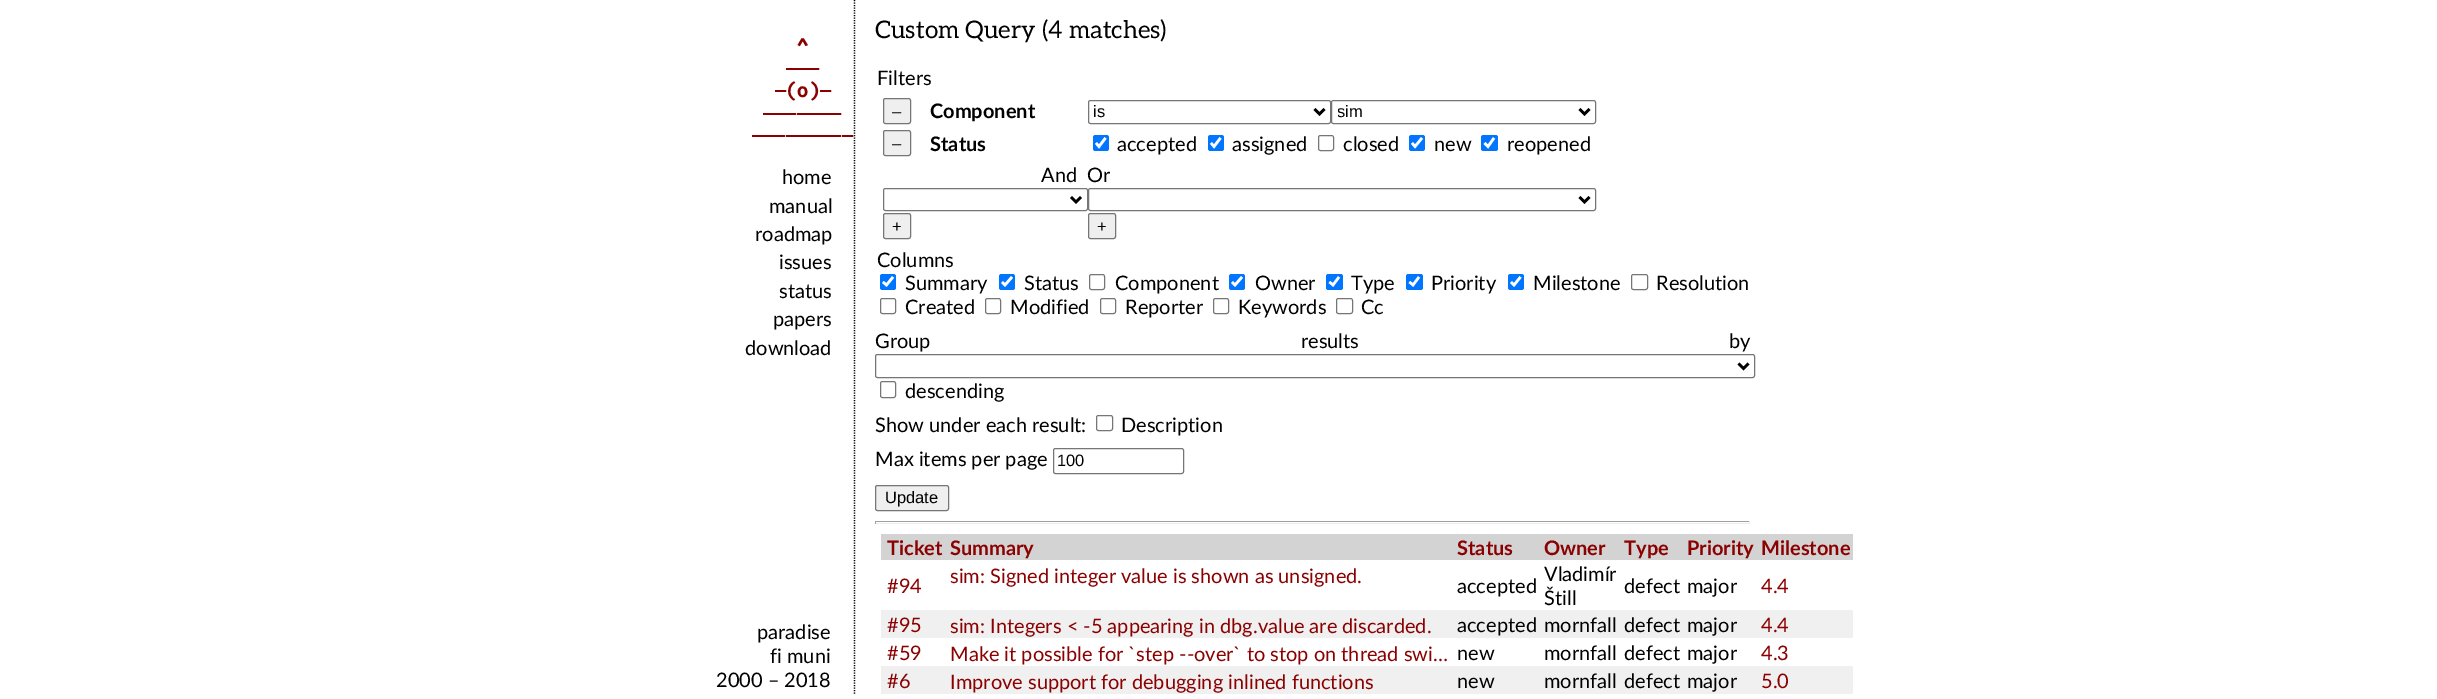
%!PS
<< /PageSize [2437 699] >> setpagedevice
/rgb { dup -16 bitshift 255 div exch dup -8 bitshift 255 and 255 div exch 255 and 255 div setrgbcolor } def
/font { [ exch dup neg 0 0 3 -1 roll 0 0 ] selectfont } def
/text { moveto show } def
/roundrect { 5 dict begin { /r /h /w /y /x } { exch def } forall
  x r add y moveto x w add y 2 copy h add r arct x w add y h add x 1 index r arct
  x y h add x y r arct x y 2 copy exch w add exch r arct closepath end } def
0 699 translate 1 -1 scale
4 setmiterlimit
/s1 { /UbuntuMono-Bold 20 font 16#8B0000 rgb } def
/s2 { /Lato-Regular 20 font 16#000000 rgb } def
/s3 { /Aleo-Regular 24.25 font 16#000000 rgb } def
/s4 { /LiberationSans-Regular 16.5 font 16#000000 rgb } def
/s5 { /Lato-Bold 20 font 16#000000 rgb } def
/s6 { /Lato-Bold 20 font 16#8B0000 rgb } def
/s7 { /Lato-Regular 20 font 16#8B0000 rgb } def
16#FFFFFF rgb
0 0 2437 699 rectfill
16#000000 rgb
1.2 setlinewidth
[1.25 1.25] 0 setdash
854.5 -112.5 moveto 854.5 694 lineto stroke
s1
(^) 797 52 text
(———) 786 75 text
(—\(o\)—) 775 97 text
(———————) 763 120 text
(—————————) 752 142 text
s2
(home) 782 184 text
(manual) 769 213 text
(roadmap) 755 241 text
(issues) 779 269 text
(status) 779 298 text
(papers) 773 326 text
(download) 745 355 text
s3
(Custom Query \(4 matches\)) 875 38 text
s2
(Filters) 877 85 text
16#EFEFEF rgb
883.5 98.5 27 25 2 roundrect gsave fill grestore
16#767676 rgb
1 setlinewidth
[] 0 setdash
stroke
s4
(–) 892 117 text
s5
(Component) 930 118 text
16#767676 rgb
1088.5 100.5 242 23 2 roundrect stroke
16#000000 rgb
2.5 setlinewidth
1314.5 109 moveto 1319.5 114 lineto 1324.5 109 lineto stroke
s4
(is) 1093 117 text
16#767676 rgb
1 setlinewidth
1331.5 100.5 264 23 2 roundrect stroke
16#000000 rgb
2.5 setlinewidth
1579.5 109 moveto 1584.5 114 lineto 1589.5 109 lineto stroke
gsave
1338 101 237 22 rectclip
(sim) 1337 117 text
grestore
16#EFEFEF rgb
883.5 130.5 27 25 2 roundrect gsave fill grestore
16#767676 rgb
1 setlinewidth
stroke
s4
(–) 892 149 text
s5
(Status) 930 151 text
16#0075FF rgb
1093 135 16 16 2.5 roundrect fill
16#FFFFFF rgb
2.6 setlinewidth
1096 143 moveto 1099 146.5 lineto 1105.5 138 lineto stroke
s2
(accepted) 1117 151 text
16#0075FF rgb
1208 135 16 16 2.5 roundrect fill
16#FFFFFF rgb
1211 143 moveto 1214 146.5 lineto 1220.5 138 lineto stroke
s2
(assigned) 1232 151 text
16#767676 rgb
1 setlinewidth
1318.5 135.5 15 15 2 roundrect stroke
s2
(closed) 1343 151 text
16#0075FF rgb
1409 135 16 16 2.5 roundrect fill
16#FFFFFF rgb
2.6 setlinewidth
1412 143 moveto 1415 146.5 lineto 1422 138 lineto stroke
s2
(new) 1434 151 text
16#0075FF rgb
1481 135 17 16 2.5 roundrect fill
16#FFFFFF rgb
1484.5 143 moveto 1488 146.5 lineto 1494 138 lineto stroke
s2
(reopened) 1507 151 text
(And) 1041 182 text
16#767676 rgb
1 setlinewidth
883.5 188.5 204 22 2 roundrect stroke
16#000000 rgb
2.5 setlinewidth
1071 197 moveto 1076 202 lineto 1081 197 lineto stroke
16#EFEFEF rgb
883.5 213.5 27 25 2 roundrect gsave fill grestore
16#767676 rgb
1 setlinewidth
stroke
s4
(+) 892 232 text
s2
(Or) 1087 182 text
16#767676 rgb
1088.5 188.5 507 22 2 roundrect stroke
16#000000 rgb
2.5 setlinewidth
1579.5 197 moveto 1584.5 202 lineto 1589.5 197 lineto stroke
16#EFEFEF rgb
1088.5 213.5 27 25 2 roundrect gsave fill grestore
16#767676 rgb
1 setlinewidth
stroke
s4
(+) 1097 232 text
s2
(Columns) 877 267 text
16#0075FF rgb
880 274 16 16 2.5 roundrect fill
16#FFFFFF rgb
2.6 setlinewidth
883 282 moveto 886.5 285 lineto 893 277 lineto stroke
s2
(Summary) 905 290 text
16#0075FF rgb
999 274 16 16 2.5 roundrect fill
16#FFFFFF rgb
1002 282 moveto 1005 285 lineto 1012 277 lineto stroke
s2
(Status) 1024 290 text
16#767676 rgb
1 setlinewidth
1089.5 274.5 15 15 2 roundrect stroke
s2
(Component) 1115 290 text
16#0075FF rgb
1229 274 16 16 2.5 roundrect fill
16#FFFFFF rgb
2.6 setlinewidth
1232 282 moveto 1235 285 lineto 1242 277 lineto stroke
s2
(Owner) 1255 290 text
16#0075FF rgb
1326 274 17 16 2.5 roundrect fill
16#FFFFFF rgb
1329.5 282 moveto 1333 285 lineto 1339 277 lineto stroke
s2
(Type) 1351 290 text
16#0075FF rgb
1406 274 17 16 2.5 roundrect fill
16#FFFFFF rgb
1409.5 282 moveto 1413 285 lineto 1419 277 lineto stroke
s2
(Priority) 1431 290 text
16#0075FF rgb
1508 274 16 16 2.5 roundrect fill
16#FFFFFF rgb
1511 282 moveto 1514 285 lineto 1520.5 277 lineto stroke
s2
(Milestone) 1533 290 text
16#767676 rgb
1 setlinewidth
1631.5 274.5 16 15 2 roundrect stroke
s2
(Resolution) 1656 290 text
16#767676 rgb
880.5 298.5 15 15 2 roundrect stroke
s2
(Created) 905 314 text
16#767676 rgb
985.5 298.5 15 15 2 roundrect stroke
s2
(Modified) 1010 314 text
16#767676 rgb
1100.5 298.5 15 15 2 roundrect stroke
s2
(Reporter) 1125 314 text
16#767676 rgb
1213.5 298.5 15 15 2 roundrect stroke
s2
(Keywords) 1238 314 text
16#767676 rgb
1336.5 298.5 16 15 2 roundrect stroke
s2
(Cc) 1361 314 text
875 348 moveto 365 0 32 (Group results by) widthshow
16#767676 rgb
875.5 354.5 879 23 2 roundrect stroke
16#000000 rgb
2.5 setlinewidth
1738.5 363.5 moveto 1743.5 368.5 lineto 1748.5 363.5 lineto stroke
16#767676 rgb
1 setlinewidth
880.5 381.5 15 16 2 roundrect stroke
s2
(descending) 905 398 text
(Show under each result:) 875 432 text
16#767676 rgb
1096.5 415.5 16 15 2 roundrect stroke
s2
(Description) 1121 432 text
(Max items per page) 875 466 text
16#767676 rgb
1053.5 448.5 130 25 2 roundrect stroke
s4
(100) 1057 466 text
16#EFEFEF rgb
875.5 485.5 73 25 2 roundrect gsave fill grestore
16#767676 rgb
stroke
s4
(Update) 885 503 text
16#9F9F9F rgb
875 521 875 1 rectfill
16#EEEEEE rgb
1749 521 1 3 rectfill
875 523 875 1 rectfill
16#9F9F9F rgb
875 521 1 3 rectfill
16#D3D3D3 rgb
881 534 972 26 rectfill
s6
(Ticket) 887 555 text
(Summary) 950 555 text
(Status) 1457 555 text
(Owner) 1544 555 text
(Type) 1624 555 text
(Priority) 1687 555 text
(Milestone) 1761 555 text
s7
(#94) 887 593 text
(sim: Signed integer value is shown as unsigned.) 950 583 text
s2
(accepted) 1457 593 text
(Vladimír) 1544 581 text
(Štill) 1544 605 text
(defect) 1624 593 text
(major) 1687 593 text
s7
(4.4) 1761 593 text
16#F0F0F0 rgb
881 610 972 28 rectfill
s7
(#95) 887 632 text
(sim: Integers < -5 appearing in dbg.value are discarded.) 950 633 text
s2
(accepted) 1457 632 text
(mornfall) 1544 632 text
(defect) 1624 632 text
(major) 1687 632 text
s7
(4.4) 1761 632 text
(#59) 887 660 text
(Make it possible for `step --over` to stop on thread swi…) 950 661 text
s2
(new) 1457 660 text
(mornfall) 1544 660 text
(defect) 1624 660 text
(major) 1687 660 text
s7
(4.3) 1761 660 text
16#F0F0F0 rgb
881 666 972 28 rectfill
s7
(#6) 887 688 text
(Improve support for debugging inlined functions) 950 689 text
s2
(new) 1457 688 text
(mornfall) 1544 688 text
(defect) 1624 688 text
(major) 1687 688 text
s7
(5.0) 1761 688 text
s2
(paradise) 757 639 text
(fi muni) 770 663 text
(2000 – 2018) 716 687 text
showpage
